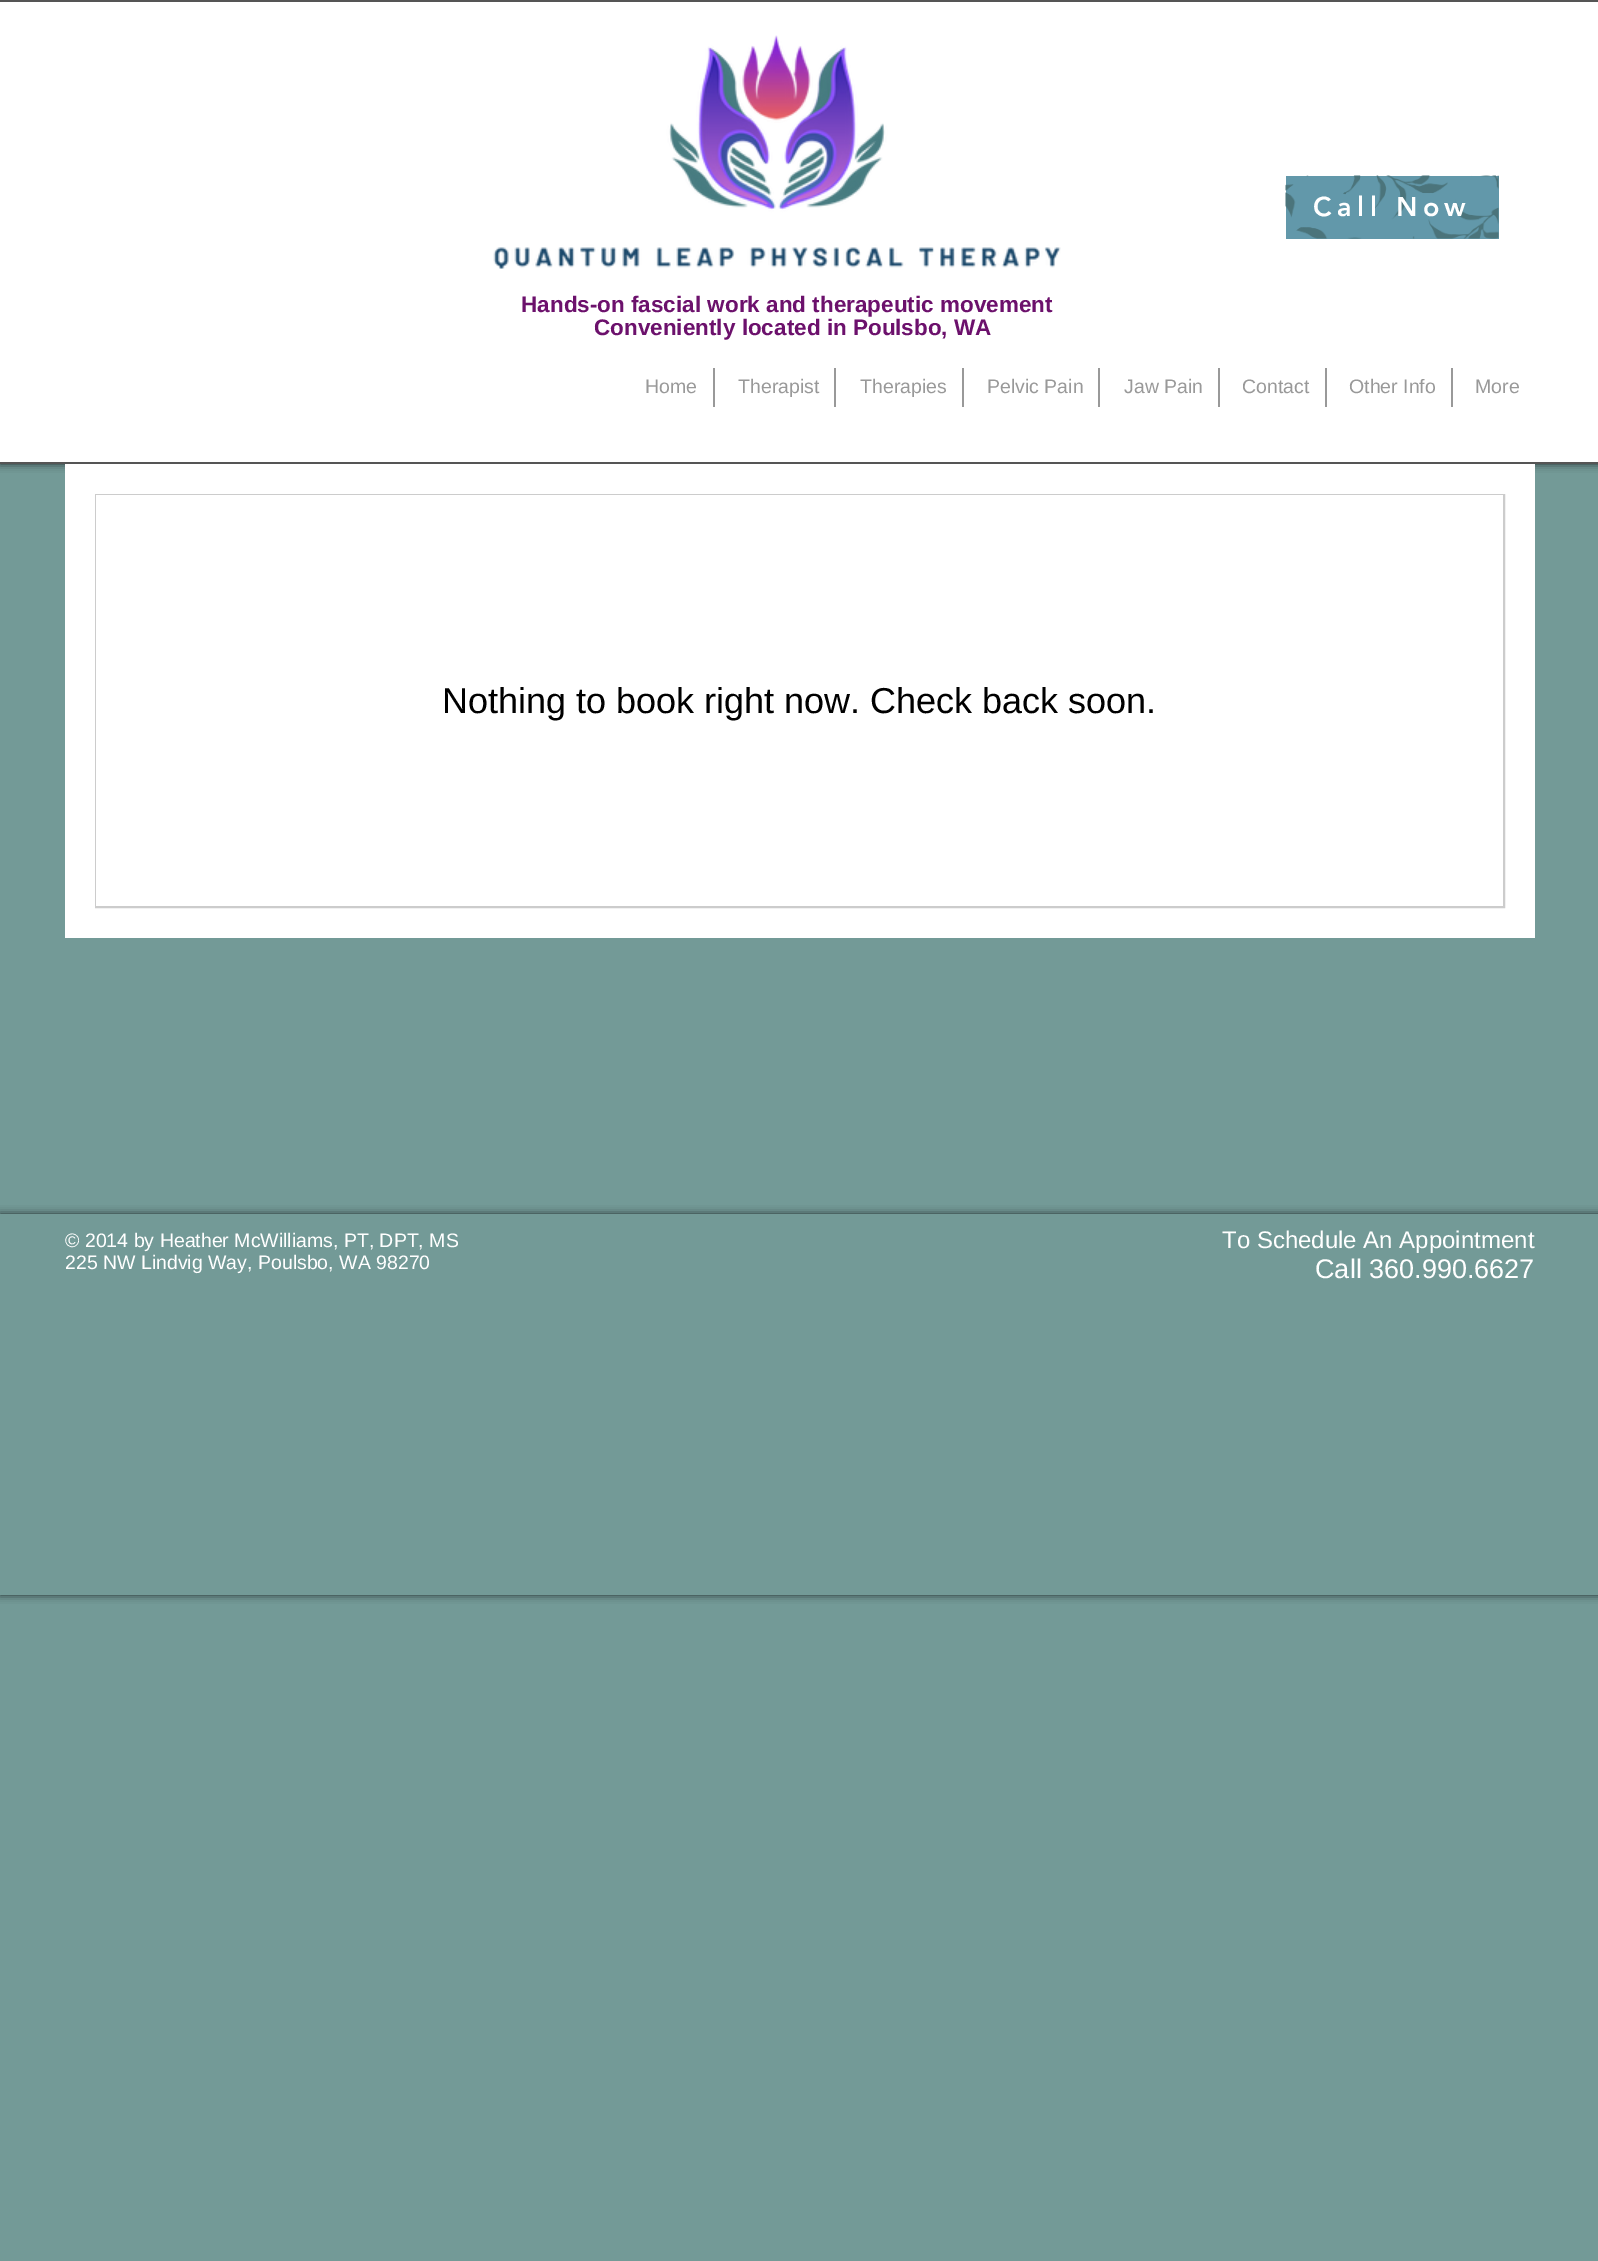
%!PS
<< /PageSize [1598 2261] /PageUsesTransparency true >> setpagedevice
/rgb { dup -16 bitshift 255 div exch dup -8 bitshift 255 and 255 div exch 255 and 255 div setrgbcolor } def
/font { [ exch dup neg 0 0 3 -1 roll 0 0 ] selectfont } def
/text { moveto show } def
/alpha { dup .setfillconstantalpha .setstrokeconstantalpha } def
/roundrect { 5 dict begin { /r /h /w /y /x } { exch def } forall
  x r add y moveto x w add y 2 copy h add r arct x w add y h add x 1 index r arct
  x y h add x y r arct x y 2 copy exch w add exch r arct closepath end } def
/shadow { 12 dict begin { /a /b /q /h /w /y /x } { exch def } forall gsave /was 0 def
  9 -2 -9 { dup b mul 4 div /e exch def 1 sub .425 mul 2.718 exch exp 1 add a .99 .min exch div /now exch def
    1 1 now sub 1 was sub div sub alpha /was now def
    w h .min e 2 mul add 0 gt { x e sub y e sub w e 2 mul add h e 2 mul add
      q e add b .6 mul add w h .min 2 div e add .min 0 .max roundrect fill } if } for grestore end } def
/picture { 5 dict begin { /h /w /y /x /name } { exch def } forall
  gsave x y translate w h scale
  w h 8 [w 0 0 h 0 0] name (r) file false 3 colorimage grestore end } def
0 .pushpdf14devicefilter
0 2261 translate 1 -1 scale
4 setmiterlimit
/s1 { /LiberationSans-Bold 22.5 font 16#6C116C rgb } def
/s2 { /LiberationSans-Regular 19.5 font 16#999999 rgb } def
/s3 { /LiberationSans-Regular 36 font 16#000000 rgb } def
/s4 { /LiberationSans-Regular 19.5 font 16#FFFFFF rgb } def
/s5 { /LiberationSans-Regular 24 font 16#FFFFFF rgb } def
/s6 { /LiberationSans-Regular 27 font 16#FFFFFF rgb } def
16#739A97 rgb
0 0 1598 2261 rectfill
16#000000 rgb
0 0 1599 464 0 4 0.7 shadow
16#FFFFFF rgb
0 2 1598 460 rectfill
16#555555 rgb
0 0 1598 2 rectfill
0 462 1598 2 rectfill
(pic1.raw) 493 35 568 234 picture
16#6298AA rgb
1286 176 213 63 rectfill
(pic2.raw) 1285 175 214 64 picture
/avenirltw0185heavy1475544-Black 27 font
16#FFFFFF rgb
1313 216 moveto 5.5 0 (Call Now) ashow
s1
(Hands-on fascial work and therapeutic movement) 521 312 text
(Conveniently located in Poulsbo, WA) 594 335 text
s2
(Home) 645 393 text
713 368 2 39 rectfill
(Therapist) 738 393 text
834 368 2 39 rectfill
(Therapies) 860 393 text
962 368 2 39 rectfill
(Pelvic Pain) 987 393 text
1098 368 2 39 rectfill
(Jaw Pain) 1124 393 text
1218 368 2 39 rectfill
(Contact) 1242 393 text
1325 368 2 39 rectfill
(Other Info) 1349 393 text
1451 368 2 39 rectfill
(More) 1475 393 text
16#FFFFFF rgb
65 464 1470 474 rectfill
16#CCCCCC rgb
2 setlinewidth
96 495 1408 412 rectstroke
16#FFFFFF rgb
96 495 1407 411 rectfill
s3
(Nothing to book right now. Check back soon.) 442 713 text
0 1214 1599 381 0 4 0.7 shadow
16#739A97 rgb
0 1214 1598 381 rectfill
s4
(© 2014 by Heather McWilliams, PT, DPT, MS) 65 1247 text
(225 NW Lindvig Way, Poulsbo, WA 98270) 65 1269 text
s5
(To Schedule An Appointment) 1222 1248 text
s6
(Call 360.990.6627) 1315 1278 text
.poppdf14devicefilter showpage
